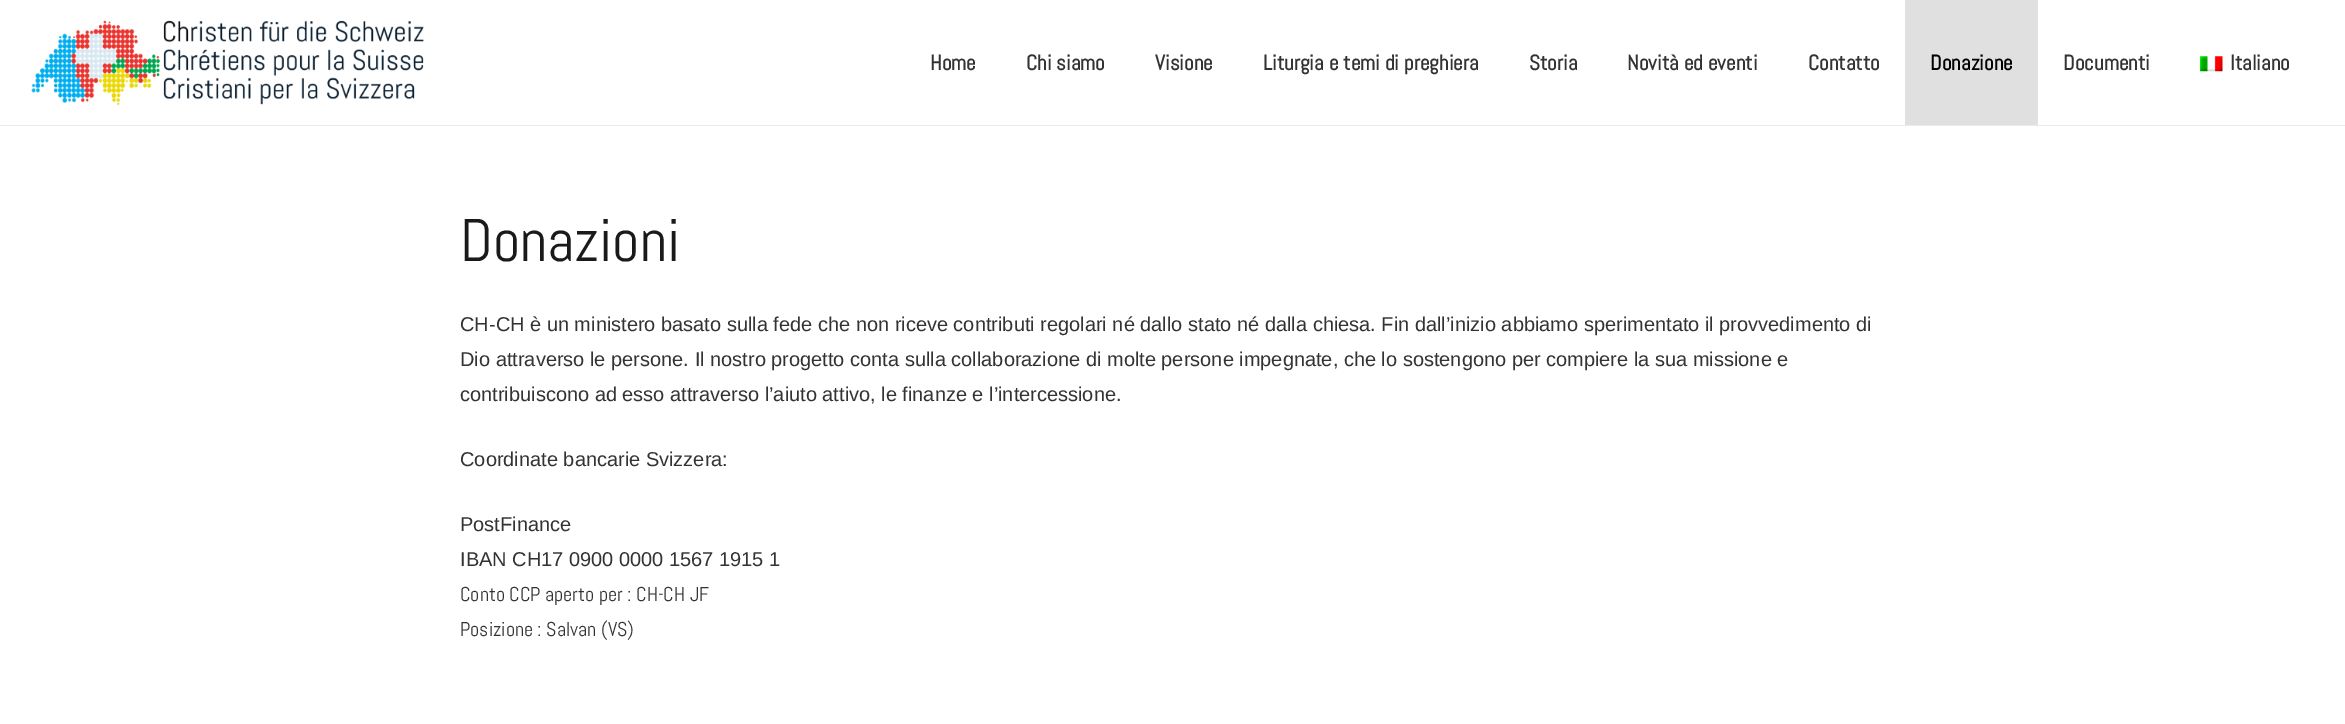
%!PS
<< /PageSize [2345 724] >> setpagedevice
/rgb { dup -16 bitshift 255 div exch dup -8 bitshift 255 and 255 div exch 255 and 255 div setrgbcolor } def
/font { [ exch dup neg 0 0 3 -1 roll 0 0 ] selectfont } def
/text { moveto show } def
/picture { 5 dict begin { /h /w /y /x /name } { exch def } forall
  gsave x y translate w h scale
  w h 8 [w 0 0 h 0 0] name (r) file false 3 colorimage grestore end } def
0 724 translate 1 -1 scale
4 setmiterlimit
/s1 { /Abel-Bold 21.25 font 16#333333 rgb } def
/s2 { /Abel-Bold 21.25 font 16#000000 rgb } def
/s3 { /Abel-Regular 60 font 16#1A1A1A rgb } def
/s4 { /LiberationSans-Regular 20 font 16#333333 rgb } def
/s5 { /Abel-Regular 20 font 16#333333 rgb } def
16#FFFFFF rgb
0 0 2345 724 rectfill
16#EBEBEB rgb
0 125 2345 1 rectfill
(pic1.raw) 31 20 393 86 picture
s1
(Home) 930 70 text
(Chi siamo) 1026 70 text
(Visione) 1155 70 text
(Liturgia e temi di preghiera) 1263 70 text
(Storia) 1529 70 text
(Novità ed eventi) 1627 70 text
(Contatto) 1808 70 text
16#E0E0E0 rgb
1905 0 133 125 rectfill
s2
(Donazione) 1930 70 text
s1
(Documenti) 2063 70 text
(pic2.raw) 2199 56 24 16 picture
(Italiano) 2230 70 text
s3
(Donazioni) 460 261 text
s4
(CH-CH è un ministero basato sulla fede che non riceve contributi regolari né dallo stato né dalla chiesa. Fin dall’inizio abbiamo sperimentato il provvedimento di) 460 331 text
(Dio attraverso le persone. Il nostro progetto conta sulla collaborazione di molte persone impegnate, che lo sostengono per compiere la sua missione e) 460 366 text
(contribuiscono ad esso attraverso l’aiuto attivo, le finanze e l’intercessione.) 460 401 text
(Coordinate bancarie Svizzera:) 460 466 text
(PostFinance) 460 531 text
(IBAN CH17 0900 0000 1567 1915 1) 460 566 text
s5
(Conto CCP aperto per : CH-CH JF) 460 601 text
(Posizione : Salvan \(VS\)) 460 636 text
showpage
